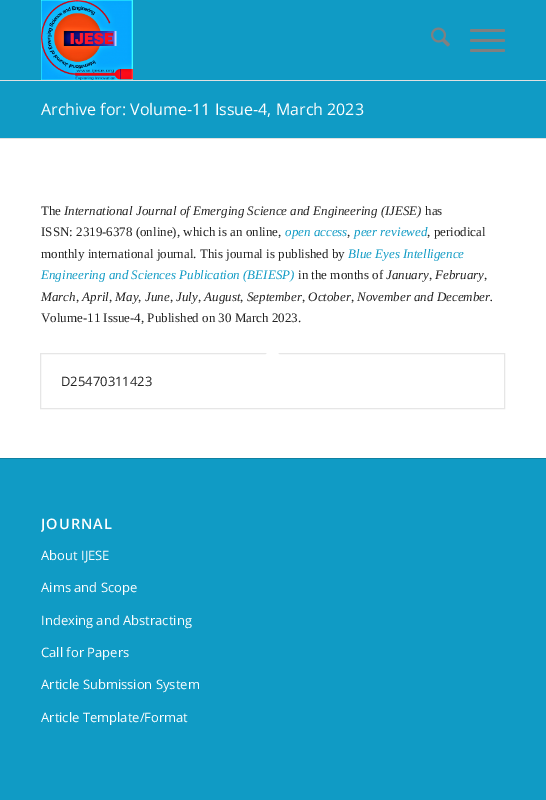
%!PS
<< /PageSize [546 800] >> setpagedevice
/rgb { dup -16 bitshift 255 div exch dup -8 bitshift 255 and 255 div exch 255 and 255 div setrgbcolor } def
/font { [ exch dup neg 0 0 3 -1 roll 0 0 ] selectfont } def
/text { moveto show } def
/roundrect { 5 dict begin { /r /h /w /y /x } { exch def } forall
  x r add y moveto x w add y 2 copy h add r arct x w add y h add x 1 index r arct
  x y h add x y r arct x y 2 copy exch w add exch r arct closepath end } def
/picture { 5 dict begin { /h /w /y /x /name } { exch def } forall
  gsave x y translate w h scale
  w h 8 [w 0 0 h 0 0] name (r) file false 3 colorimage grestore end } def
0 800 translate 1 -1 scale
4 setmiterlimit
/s1 { /OpenSans-Regular 16 font 16#FFFFFF rgb } def
/s2 { /LiberationSerif-Regular 13 font 16#222222 rgb } def
/s3 { /LiberationSerif-Italic 13 font 16#222222 rgb } def
/s4 { /LiberationSerif-Italic 13 font 16#109BC5 rgb } def
/s5 { /OpenSans-Regular 13 font 16#222222 rgb } def
/s6 { /OpenSans-Regular 13 font 16#FFFFFF rgb } def
16#109BC5 rgb
0 0 546 800 rectfill
16#E1E1E1 rgb
0 80 546 1 rectfill
(pic1.raw) 41 0 92 80 picture
(pic2.raw) 431 27 19 20 picture
16#808080 rgb
470 39 35 3 1.5 roundrect fill
470 29 35 3 1.5 roundrect fill
470 49 35 3 1.5 roundrect fill
s1
(Archive for: Volume-11 Issue-4, March 2023) 41 115 text
0 139 546 319 rectfill
16#E1E1E1 rgb
0 138 546 1 rectfill
s2
(The) 41 215 text
s3
(International Journal of Emerging Science and Engineering \(IJESE\)) 64 215 text
s2
(has) 425 215 text
(ISSN: 2319-6378 \(online\), which is an online,) 41 236 text
s4
(open access) 285 236 text
s2
(,) 347 236 text
s4
(peer reviewed) 354 236 text
s2
(, periodical) 427 236 text
(monthly international journal. This journal is published by) 41 258 text
s4
(Blue Eyes Intelligence) 348 258 text
(Engineering and Sciences Publication \(BEIESP\)) 41 279 text
s2
(in the months of) 298 279 text
s3
(January, February,) 386 279 text
(March, April, May, June, July, August, September, October, November and December.) 41 301 text
s2
(Volume-11 Issue-4, Published on 30 March 2023.) 41 322 text
16#E6E6E6 rgb
40.5 353.5 464 55 rectstroke
16#FFFFFF rgb
272.5 347.5 moveto 279.5 354.5 lineto 272.5 361.5 lineto 265.5 354.5 lineto closepath fill
s5
(D25470311423) 61 386 text
16#0F81A1 rgb
0 458 546 1 rectfill
gsave
41 504 464 230 rectclip
/OpenSans-SemiBold 14.5 font
16#FFFFFF rgb
41 529 moveto 1 0 (JOURNAL) ashow
grestore
s6
(About IJESE) 41 560 text
(Aims and Scope) 41 592 text
(Indexing and Abstracting) 41 625 text
(Call for Papers) 41 657 text
(Article Submission System) 41 689 text
(Article Template/Format) 41 722 text
showpage
